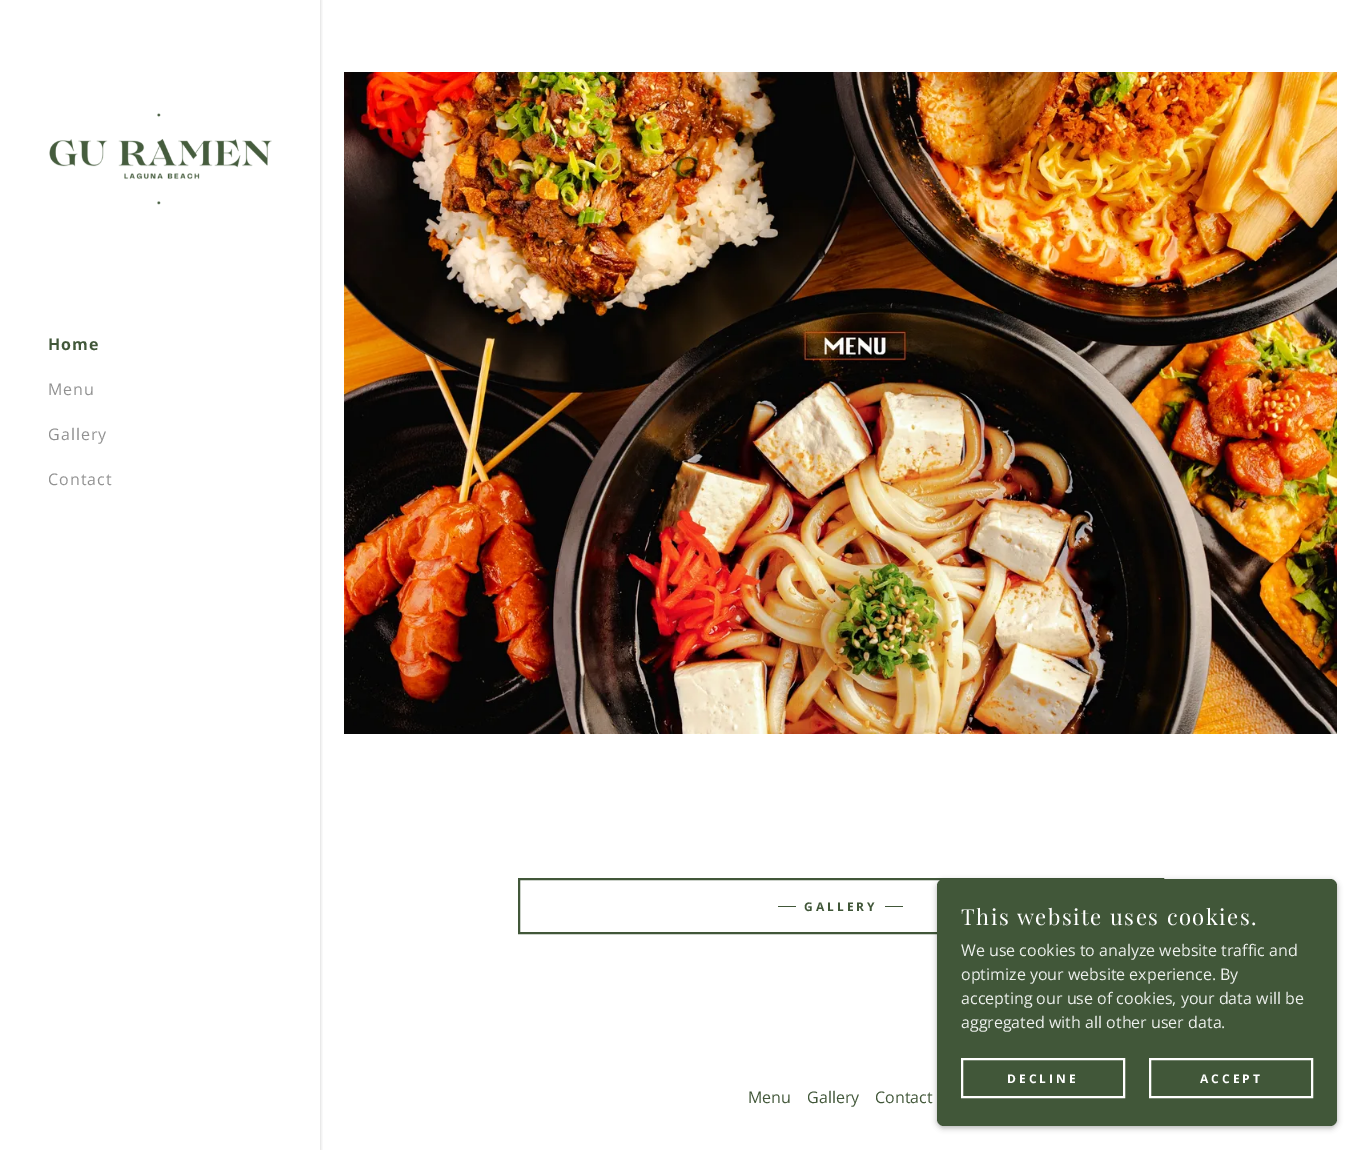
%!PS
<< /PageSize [1361 1150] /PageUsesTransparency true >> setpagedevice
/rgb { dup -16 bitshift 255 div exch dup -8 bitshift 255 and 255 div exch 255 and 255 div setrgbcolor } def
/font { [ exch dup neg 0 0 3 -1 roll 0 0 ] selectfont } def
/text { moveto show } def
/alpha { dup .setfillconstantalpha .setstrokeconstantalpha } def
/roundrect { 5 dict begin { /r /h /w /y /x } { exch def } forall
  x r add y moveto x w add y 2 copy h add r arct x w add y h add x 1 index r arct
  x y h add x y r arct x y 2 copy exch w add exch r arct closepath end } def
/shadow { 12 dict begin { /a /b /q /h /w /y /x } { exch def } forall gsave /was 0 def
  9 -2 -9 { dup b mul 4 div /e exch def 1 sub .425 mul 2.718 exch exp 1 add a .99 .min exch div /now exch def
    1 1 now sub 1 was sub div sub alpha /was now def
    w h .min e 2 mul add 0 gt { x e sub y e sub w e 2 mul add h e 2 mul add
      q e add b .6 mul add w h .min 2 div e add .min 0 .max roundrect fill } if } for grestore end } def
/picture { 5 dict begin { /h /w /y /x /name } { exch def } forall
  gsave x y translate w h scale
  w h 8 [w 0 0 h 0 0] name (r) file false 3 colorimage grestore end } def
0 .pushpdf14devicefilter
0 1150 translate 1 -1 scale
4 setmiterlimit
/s1 { /OpenSans-Regular 16 font 16#EDF0ED rgb } def
/s2 { /OpenSans-Regular 16 font 16#415739 rgb } def
16#FFFFFF rgb
0 0 1361 1150 rectfill
gsave
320 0 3 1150 rectclip
16#000000 rgb
0 0 320 1150 0 2 0.2 shadow
grestore
(pic1.raw) 49 113 223 92 picture
/OpenSans-Bold 16 font
16#415739 rgb
48 350 moveto 1 0 (Home) ashow
/OpenSans-Regular 16 font
16#919191 rgb
48 395 moveto 1 0 (Menu) ashow
48 440 moveto 1 0 (Gallery) ashow
48 485 moveto 1 0 (Contact) ashow
(pic2.raw) 344 72 993 662 picture
16#415739 rgb
2 setlinewidth
519 879 644 54 rectstroke
778 906 18 1 rectfill
/OpenSans-Bold 12 font
804 911 moveto 3 0 (GALLERY) ashow
885 906 18 1 rectfill
16#000000 rgb
937 881 400 247 7 3 0.3 shadow
16#415739 rgb
937 879 400 247 7 roundrect fill
/PlayfairDisplay-Regular 22 font
16#FFFFFF rgb
961 925 moveto 1.5 0 (This website uses cookies.) ashow
s1
(We use cookies to analyze website traffic and) 961 956 text
(optimize your website experience. By) 961 980 text
(accepting our use of cookies, your data will be) 961 1004 text
(aggregated with all other user data.) 961 1028 text
16#FFFFFF rgb
962 1059 162 38 rectstroke
/OpenSans-Bold 12 font
1007 1083 moveto 3 0 (DECLINE) ashow
1150 1059 162 38 rectstroke
1200 1083 moveto 3 0 (ACCEPT) ashow
s2
(Menu) 748 1103 text
(Gallery) 807 1103 text
(Contact) 875 1103 text
.poppdf14devicefilter showpage
